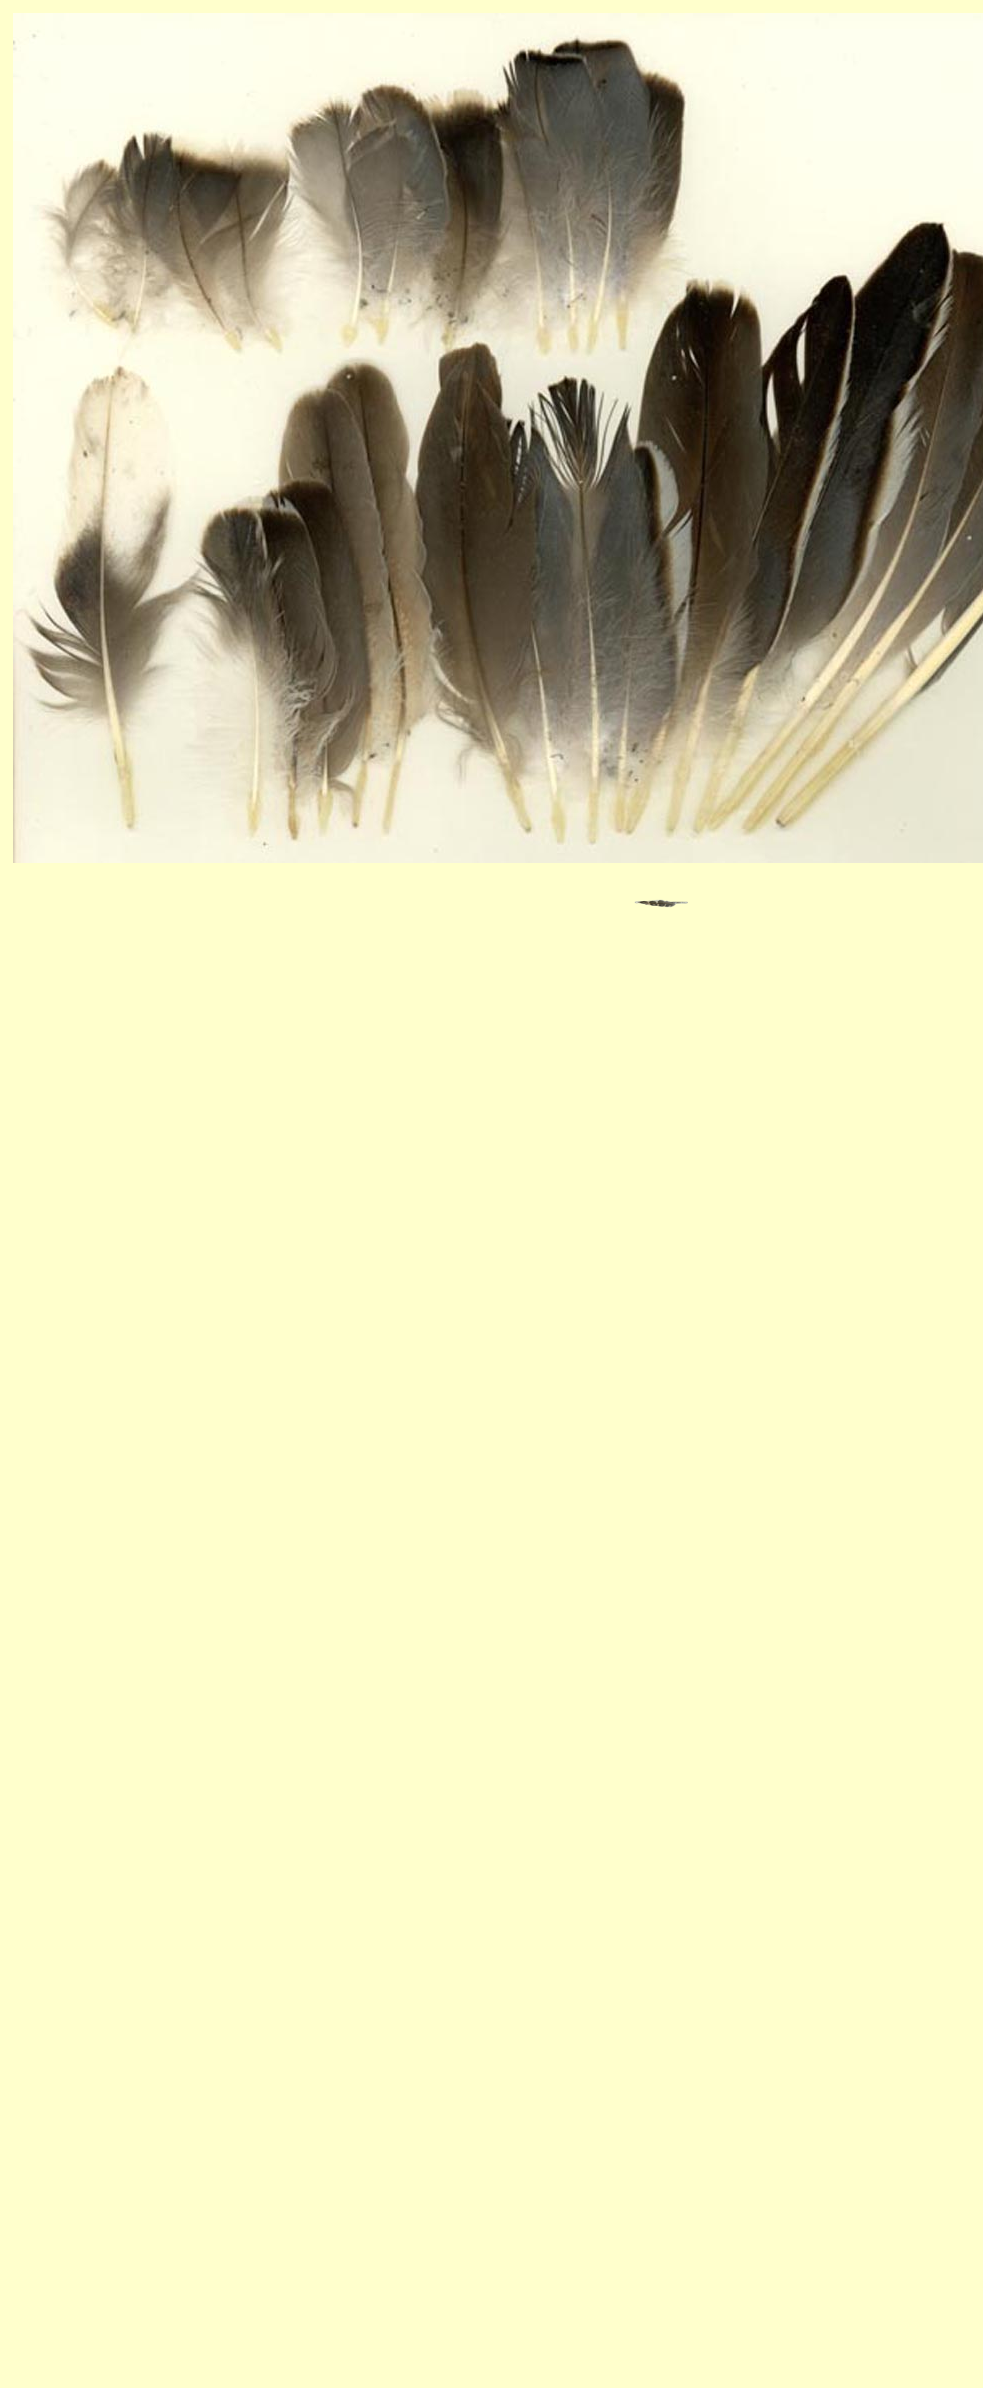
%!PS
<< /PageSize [983 2388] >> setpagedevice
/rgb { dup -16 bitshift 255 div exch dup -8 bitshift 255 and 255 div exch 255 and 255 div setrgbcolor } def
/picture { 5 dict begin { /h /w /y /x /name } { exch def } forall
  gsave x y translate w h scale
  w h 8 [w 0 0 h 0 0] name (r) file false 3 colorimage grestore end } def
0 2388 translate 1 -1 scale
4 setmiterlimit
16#FFFFCC rgb
0 0 983 2388 rectfill
(pic1.raw) 13 13 970 850 picture
(pic2.raw) 634 899 54 9 picture
showpage
